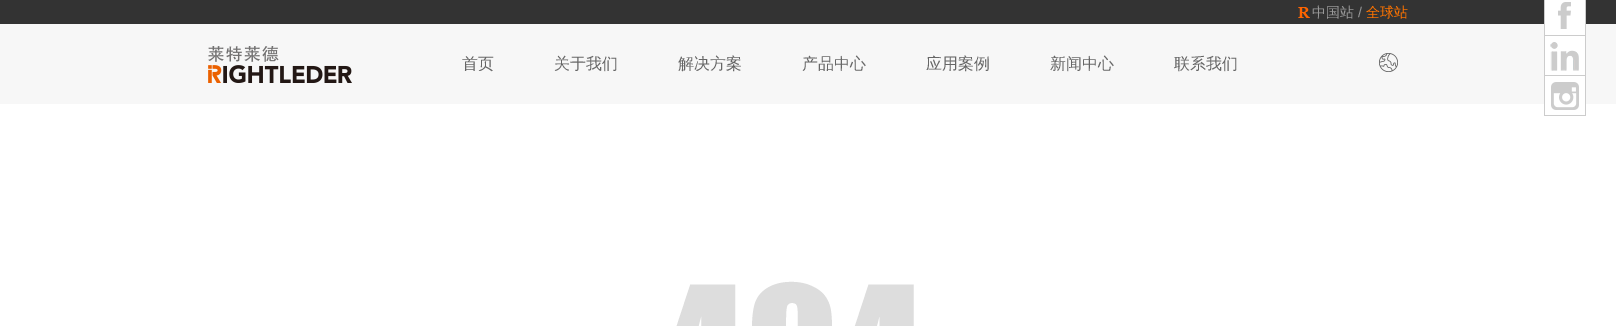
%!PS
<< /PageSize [1616 326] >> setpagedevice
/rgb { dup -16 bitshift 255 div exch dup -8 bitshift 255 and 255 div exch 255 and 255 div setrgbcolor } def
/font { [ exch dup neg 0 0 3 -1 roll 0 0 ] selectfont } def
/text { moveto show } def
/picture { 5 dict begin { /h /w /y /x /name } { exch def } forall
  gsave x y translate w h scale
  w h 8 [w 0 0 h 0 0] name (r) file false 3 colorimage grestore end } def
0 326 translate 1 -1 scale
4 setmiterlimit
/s1 { /WenQuanYiZenHei-Medium 14 font 16#999999 rgb } def
/s2 { /LiberationSans-Regular 14 font 16#999999 rgb } def
/s3 { /WenQuanYiZenHei-Medium 14 font 16#FF7400 rgb } def
/s4 { /WenQuanYiZenHei-Medium 16 font 16#666666 rgb } def
16#FFFFFF rgb
0 0 1616 326 rectfill
16#F7F7F7 rgb
0 24 1616 80 rectfill
16#333333 rgb
0 0 1616 24 rectfill
(pic1.raw) 1298 7 12 11 picture
s1
(中国站) 1312 17 text
s2
(/) 1358 17 text
s3
(全球站) 1366 17 text
(pic2.raw) 208 46 144 37 picture
s4
(首页) 462 69 text
(关于我们) 554 69 text
(解决方案) 678 69 text
(产品中心) 802 69 text
(应用案例) 926 69 text
(新闻中心) 1050 69 text
(联系我们) 1174 69 text
(pic3.raw) 1379 53 19 19 picture
16#FFFFFF rgb
1545 0 40 35 rectfill
16#CCCCCC rgb
1585 0 1 116 rectfill
1544 35 42 1 rectfill
1544 0 1 36 rectfill
(pic4.raw) 1558 2 13 27 picture
16#FFFFFF rgb
1545 36 40 39 rectfill
16#CCCCCC rgb
1544 75 42 1 rectfill
1544 36 1 40 rectfill
(pic5.raw) 1550 42 29 29 picture
16#FFFFFF rgb
1545 76 40 28 rectfill
16#CCCCCC rgb
1544 115 42 1 rectfill
1544 76 1 40 rectfill
(pic6.raw) 1551 82 28 28 picture
(pic7.raw) 676 281 238 45 picture
showpage
